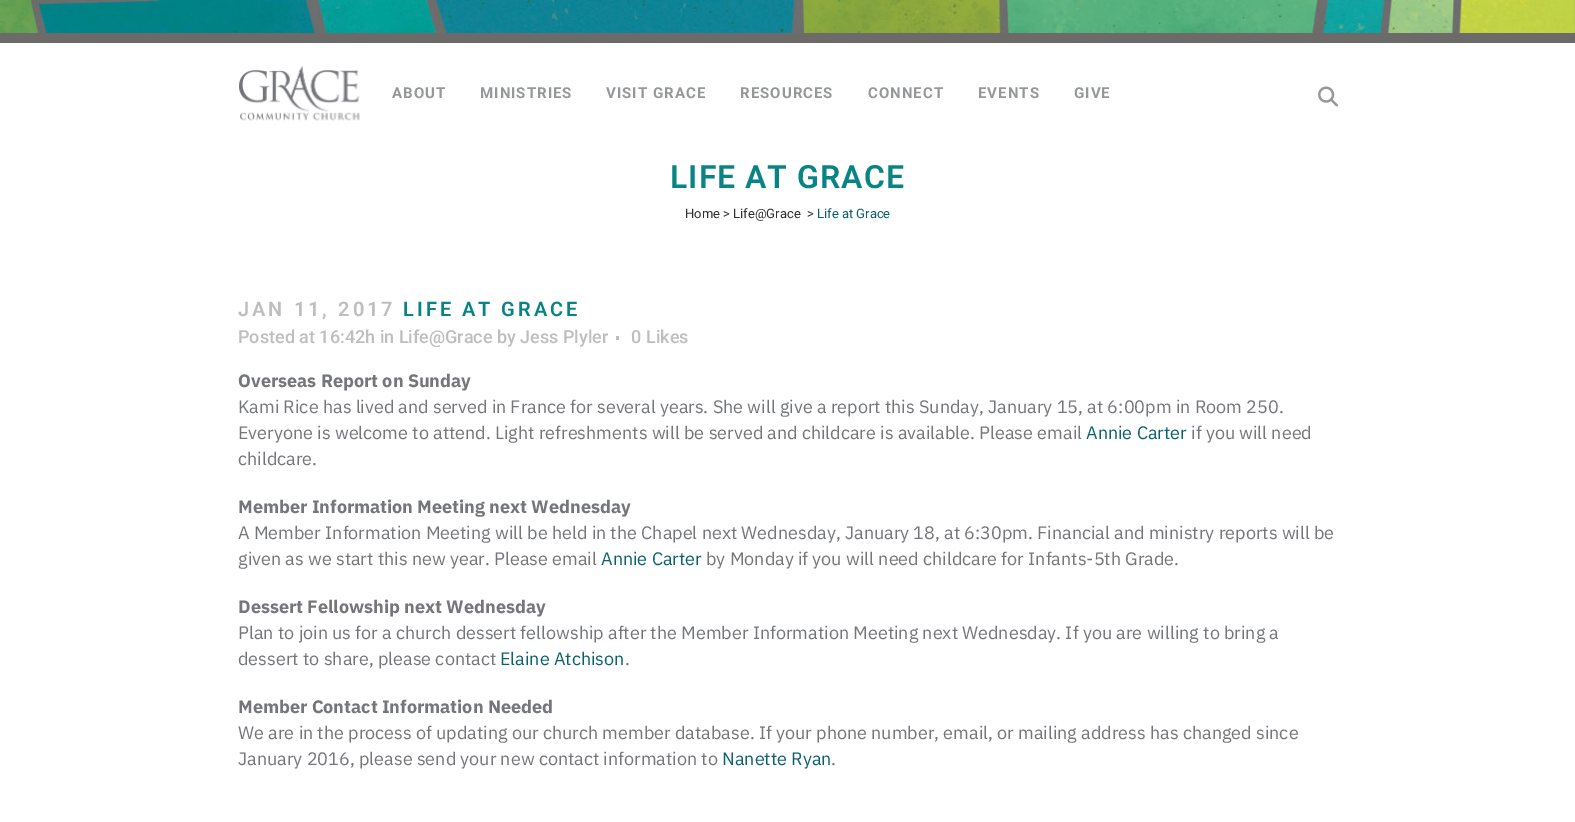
%!PS
<< /PageSize [1575 822] >> setpagedevice
/rgb { dup -16 bitshift 255 div exch dup -8 bitshift 255 and 255 div exch 255 and 255 div setrgbcolor } def
/font { [ exch dup neg 0 0 3 -1 roll 0 0 ] selectfont } def
/text { moveto show } def
/picture { 5 dict begin { /h /w /y /x /name } { exch def } forall
  gsave x y translate w h scale
  w h 8 [w 0 0 h 0 0] name (r) file false 3 colorimage grestore end } def
0 822 translate 1 -1 scale
4 setmiterlimit
/s1 { /Roboto-Regular 13 font 16#303030 rgb } def
/s2 { /Roboto-Regular 13 font 16#0C6171 rgb } def
/s3 { /Roboto-Medium 18 font 16#BEBEBE rgb } def
/s4 { /IBMPlexSans-Bold 18 font 16#74767A rgb } def
/s5 { /IBMPlexSans-Regular 18 font 16#74767A rgb } def
/s6 { /IBMPlexSans-Regular 18 font 16#0C6171 rgb } def
16#FFFFFF rgb
0 0 1575 822 rectfill
(pic1.raw) 0 0 1575 33 picture
16#6D6B69 rgb
0 33 1575 10 rectfill
(pic2.raw) 239 66 121 55 picture
/Roboto-Bold 15 font
16#959799 rgb
392 98 moveto 1 0 (ABOUT) ashow
480 98 moveto 1 0 (MINISTRIES) ashow
606 98 moveto 1 0 (VISIT GRACE) ashow
740 98 moveto 1 0 (RESOURCES) ashow
868 98 moveto 1 0 (CONNECT) ashow
978 98 moveto 1 0 (EVENTS) ashow
1074 98 moveto 1 0 (GIVE) ashow
(pic3.raw) 1318 86 20 21 picture
/Roboto-SemiBold 32 font
16#098484 rgb
670 188 moveto 1 0 (LIFE AT GRACE) ashow
s1
(Home > Life@Grace) 685 218 text
(>) 807 218 text
s2
(Life at Grace) 817 218 text
/Roboto-SemiBold 20 font
16#BEBEBE rgb
238 316 moveto 3 0 (JAN 11, 2017) ashow
16#098484 rgb
403 316 moveto 3 0 (LIFE AT GRACE) ashow
s3
(Posted at 16:42h in Life@Grace by Jess Plyler) 238 343 text
616 336 3 4 rectfill
(0) 631 343 text
(Likes) 646 343 text
s4
(Overseas Report on Sunday) 238 387 text
s5
(Kami Rice has lived and served in France for several years. She will give a report this Sunday, January 15, at 6:00pm in Room 250.) 238 413 text
(Everyone is welcome to attend. Light refreshments will be served and childcare is available. Please email) 238 439 text
s6
(Annie Carter) 1086 439 text
s5
(if you will need) 1191 439 text
(childcare.) 238 465 text
s4
(Member Information Meeting next Wednesday) 238 513 text
s5
(A Member Information Meeting will be held in the Chapel next Wednesday, January 18, at 6:30pm. Financial and ministry reports will be) 238 539 text
(given as we start this new year. Please email) 238 565 text
s6
(Annie Carter) 601 565 text
s5
(by Monday if you will need childcare for Infants-5th Grade.) 706 565 text
s4
(Dessert Fellowship next Wednesday) 238 613 text
s5
(Plan to join us for a church dessert fellowship after the Member Information Meeting next Wednesday. If you are willing to bring a) 238 639 text
(dessert to share, please contact) 238 665 text
s6
(Elaine Atchison) 500 665 text
s5
(.) 625 665 text
s4
(Member Contact Information Needed) 238 713 text
s5
(We are in the process of updating our church member database. If your phone number, email, or mailing address has changed since) 238 739 text
(January 2016, please send your new contact information to) 238 765 text
s6
(Nanette Ryan) 722 765 text
s5
(.) 831 765 text
showpage
